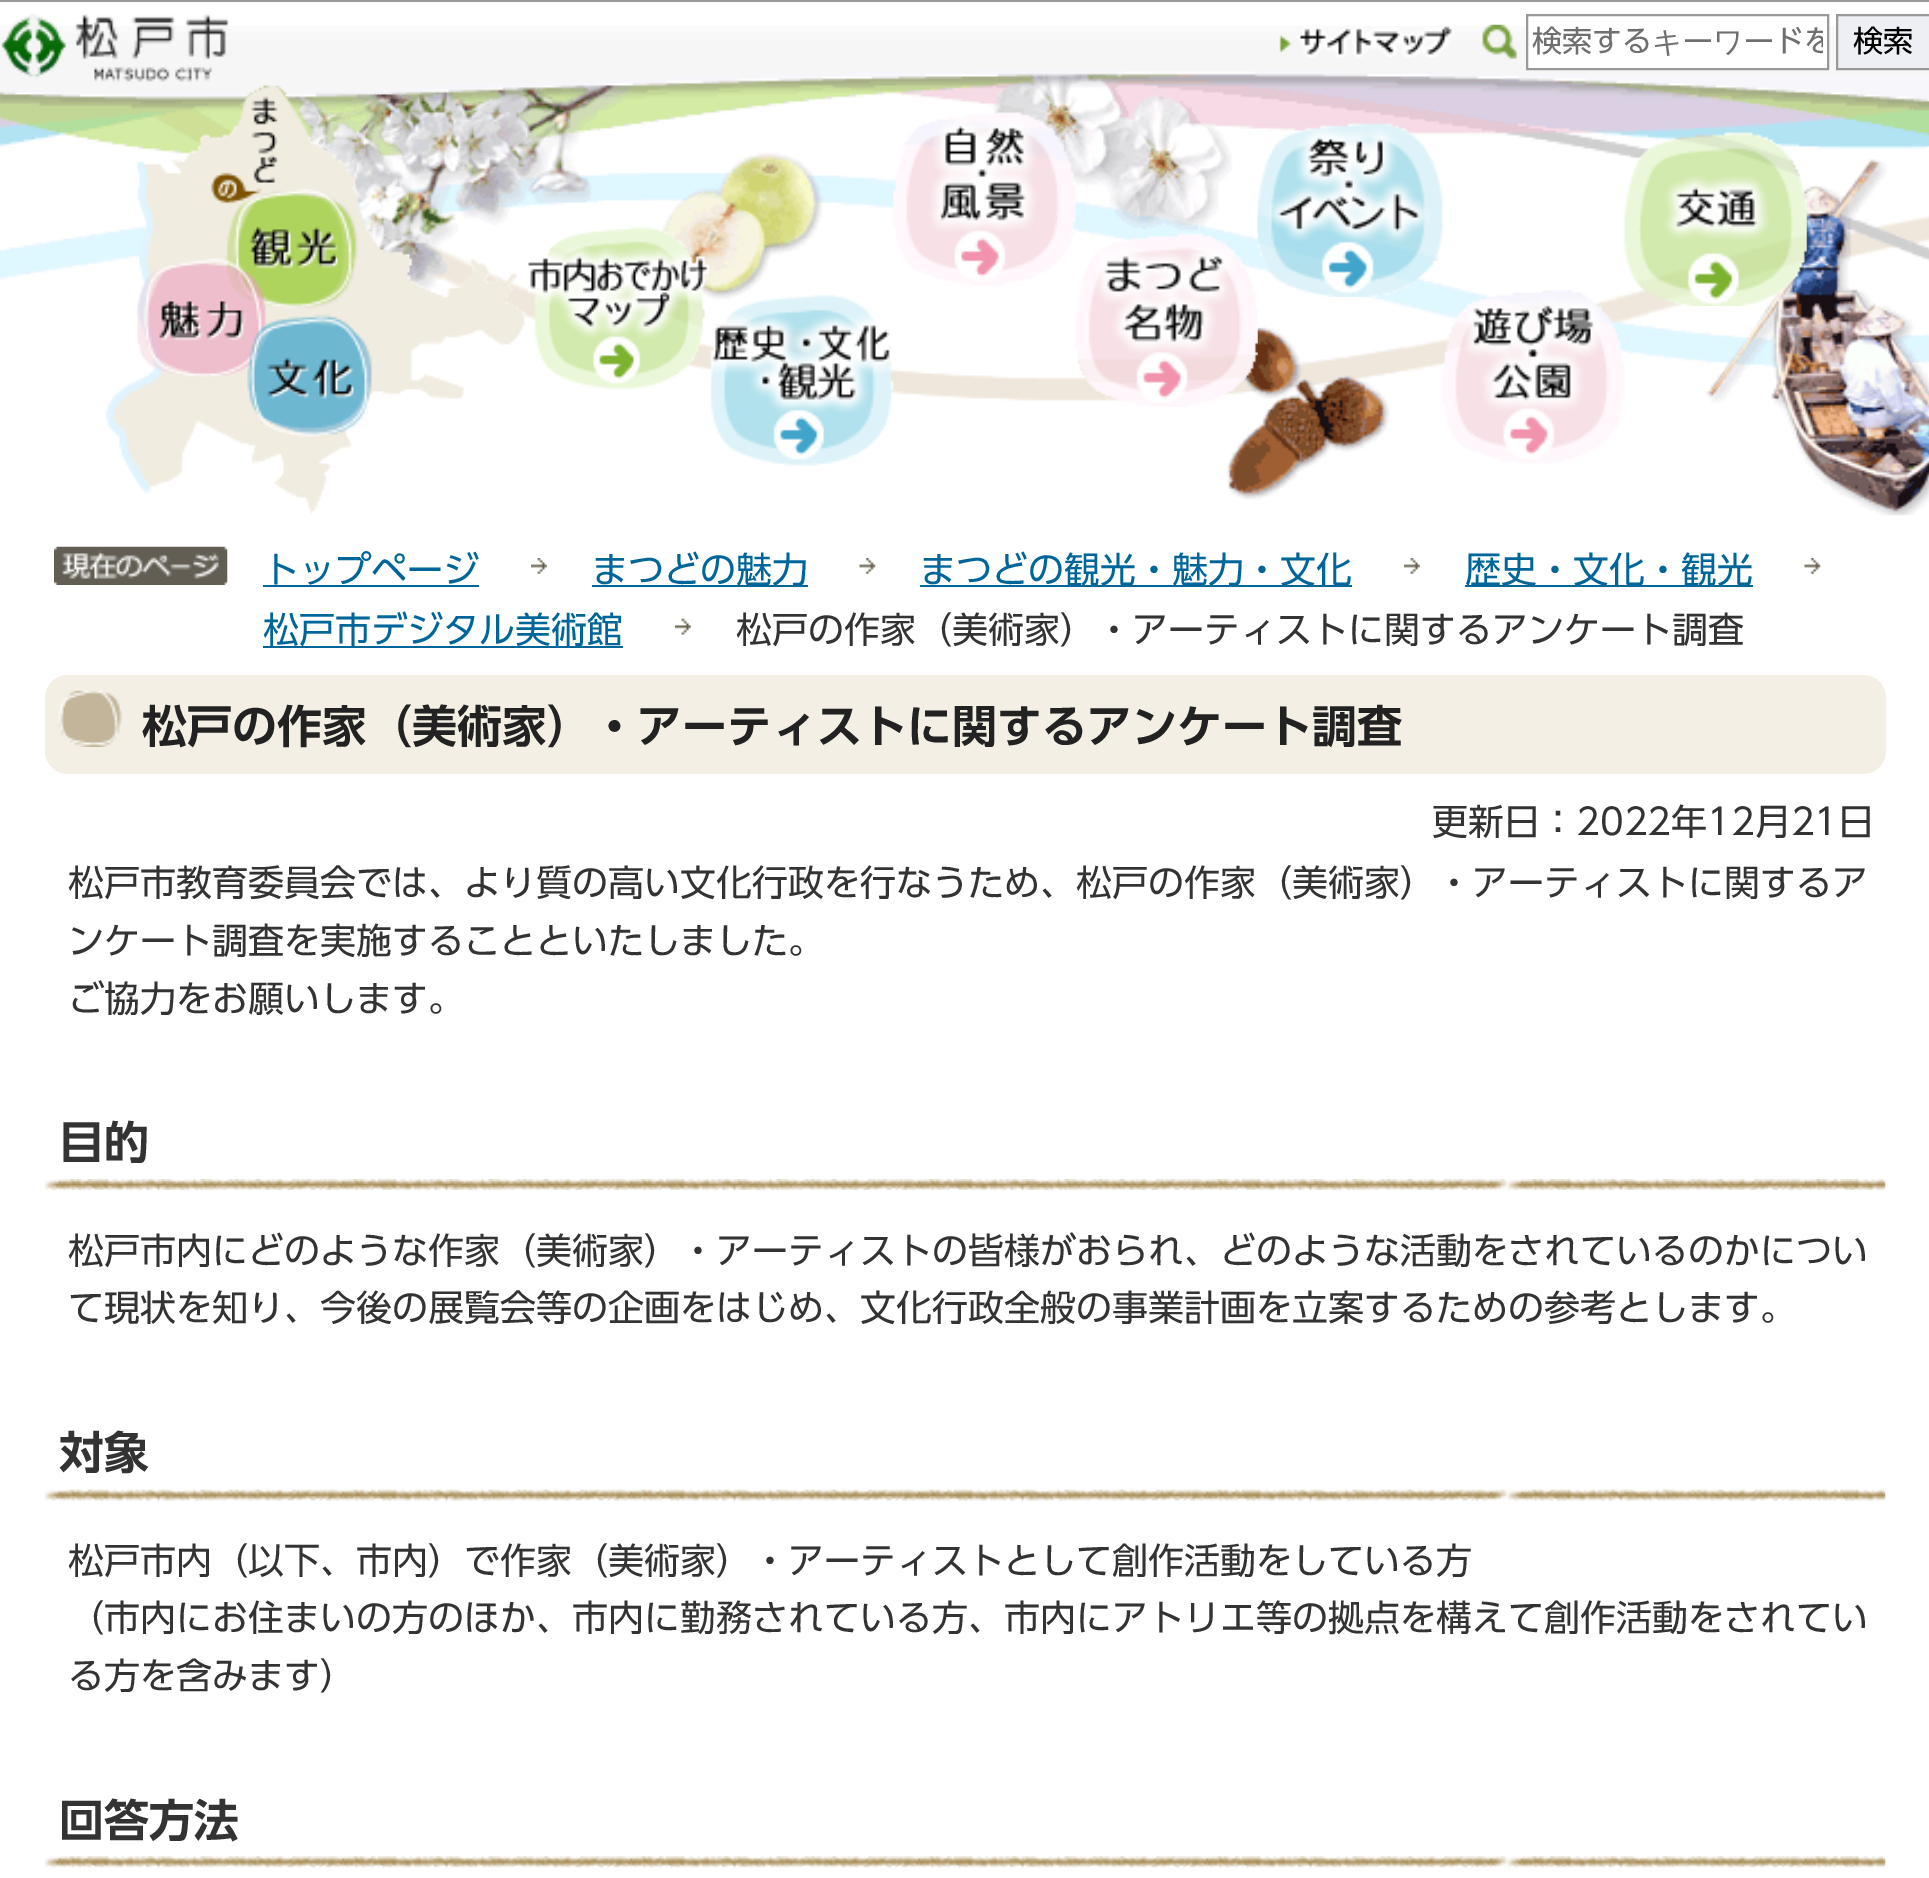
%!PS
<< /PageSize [1929 1878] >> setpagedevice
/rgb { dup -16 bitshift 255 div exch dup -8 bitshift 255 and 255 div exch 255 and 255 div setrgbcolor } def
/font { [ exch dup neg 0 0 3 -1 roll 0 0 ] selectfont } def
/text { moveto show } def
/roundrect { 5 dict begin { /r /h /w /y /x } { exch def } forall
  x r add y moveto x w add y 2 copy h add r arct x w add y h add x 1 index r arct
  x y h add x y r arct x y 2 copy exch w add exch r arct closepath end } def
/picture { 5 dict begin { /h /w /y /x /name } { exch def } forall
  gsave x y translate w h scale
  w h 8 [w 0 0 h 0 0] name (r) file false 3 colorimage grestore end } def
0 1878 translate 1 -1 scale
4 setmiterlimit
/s1 { /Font-Regular 30 font 16#6F6F6F rgb } def
/s2 { /WenQuanYiZenHei-Medium 30 font 16#6F6F6F rgb } def
/s3 { /Font-Regular 30 font 16#000000 rgb } def
/s4 { /Font-Regular 36 font 16#006699 rgb } def
/s5 { /Font-Regular 36 font 16#333333 rgb } def
/s6 { /Font-SemiBold 45 font 16#222222 rgb } def
/s7 { /Font-SemiBold 45 font 16#333333 rgb } def
16#FFFFFF rgb
0 0 1929 1878 rectfill
16#999999 rgb
0 0 1929 2 rectfill
(pic1.raw) 0 26 1929 490 picture
(pic2.raw) 1 13 229 69 picture
(pic3.raw) 1279 25 175 33 picture
(pic4.raw) 1482 24 36 36 picture
16#FFFFFF rgb
1528 26 299 42 rectfill
16#999999 rgb
2 setlinewidth
1527 15 301 54 rectstroke
s1
(検索する) 1532 52 text
s2
(キ) 1652 52 text
s1
(ー) 1683 52 text
s2
(ワ) 1713 52 text
gsave
1532 18 291 47 rectclip
s1
(ードを) 1744 52 text
grestore
16#EDEFF4 rgb
1837 15 moveto 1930 15 lineto 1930 69 lineto 1837 69 lineto closepath gsave fill grestore
16#999999 rgb
stroke
s3
(検索) 1853 52 text
(pic5.raw) 105 85 420 429 picture
(pic6.raw) 528 227 181 163 picture
(pic7.raw) 710 294 184 172 picture
(pic8.raw) 893 112 183 174 picture
(pic9.raw) 1075 233 183 174 picture
(pic10.raw) 1257 123 186 174 picture
(pic11.raw) 1442 290 183 174 picture
(pic12.raw) 1624 132 183 174 picture
(pic13.raw) 54 546 174 39 picture
(pic14.raw) 531 558 16 16 picture
s4
(トップページ) 263 583 text
263 585 216 2 rectfill
(pic15.raw) 859 558 17 16 picture
592 585 216 2 rectfill
(まつどの魅力) 592 583 text
(pic16.raw) 1404 558 16 16 picture
920 585 432 2 rectfill
(まつどの観光・魅力・文化) 920 583 text
(pic15.raw) 1804 558 17 16 picture
1465 585 288 2 rectfill
(歴史・文化・観光) 1465 583 text
(pic17.raw) 675 618 16 17 picture
263 646 360 2 rectfill
(松戸市デジタル美術館) 263 643 text
s5
(松戸の作家（美術家）・アーティストに関するアンケート調査) 736 643 text
16#F3EFE5 rgb
45 675 1841 99 23 roundrect fill
(pic18.raw) 58 690 64 57 picture
s6
(松戸の作家（美術家）・アーティストに関するアンケート調査) 142 743 text
s5
(更新日：2022年12月21日) 1432 835 text
(松戸市教育委員会では、より質の高い文化行政を行なうため、松戸の作家（美術家）・アーティストに関するア) 68 896 text
(ンケート調査を実施することといたしました。) 68 954 text
(ご協力をお願いします。) 68 1012 text
(pic19.raw) 45 1179 1841 11 picture
s7
(目的) 59 1159 text
s5
(松戸市内にどのような作家（美術家）・アーティストの皆様がおられ、どのような活動をされているのかについ) 68 1264 text
(て現状を知り、今後の展覧会等の企画をはじめ、文化行政全般の事業計画を立案するための参考とします。) 68 1321 text
(pic20.raw) 45 1489 1841 12 picture
s7
(対象) 59 1469 text
s5
(松戸市内（以下、市内）で作家（美術家）・アーティストとして創作活動をしている方) 68 1574 text
(（市内にお住まいの方のほか、市内に勤務されている方、市内にアトリエ等の拠点を構えて創作活動をされてい) 68 1631 text
(る方を含みます）) 68 1689 text
(pic21.raw) 45 1856 1841 12 picture
s7
(回答方法) 59 1837 text
showpage
